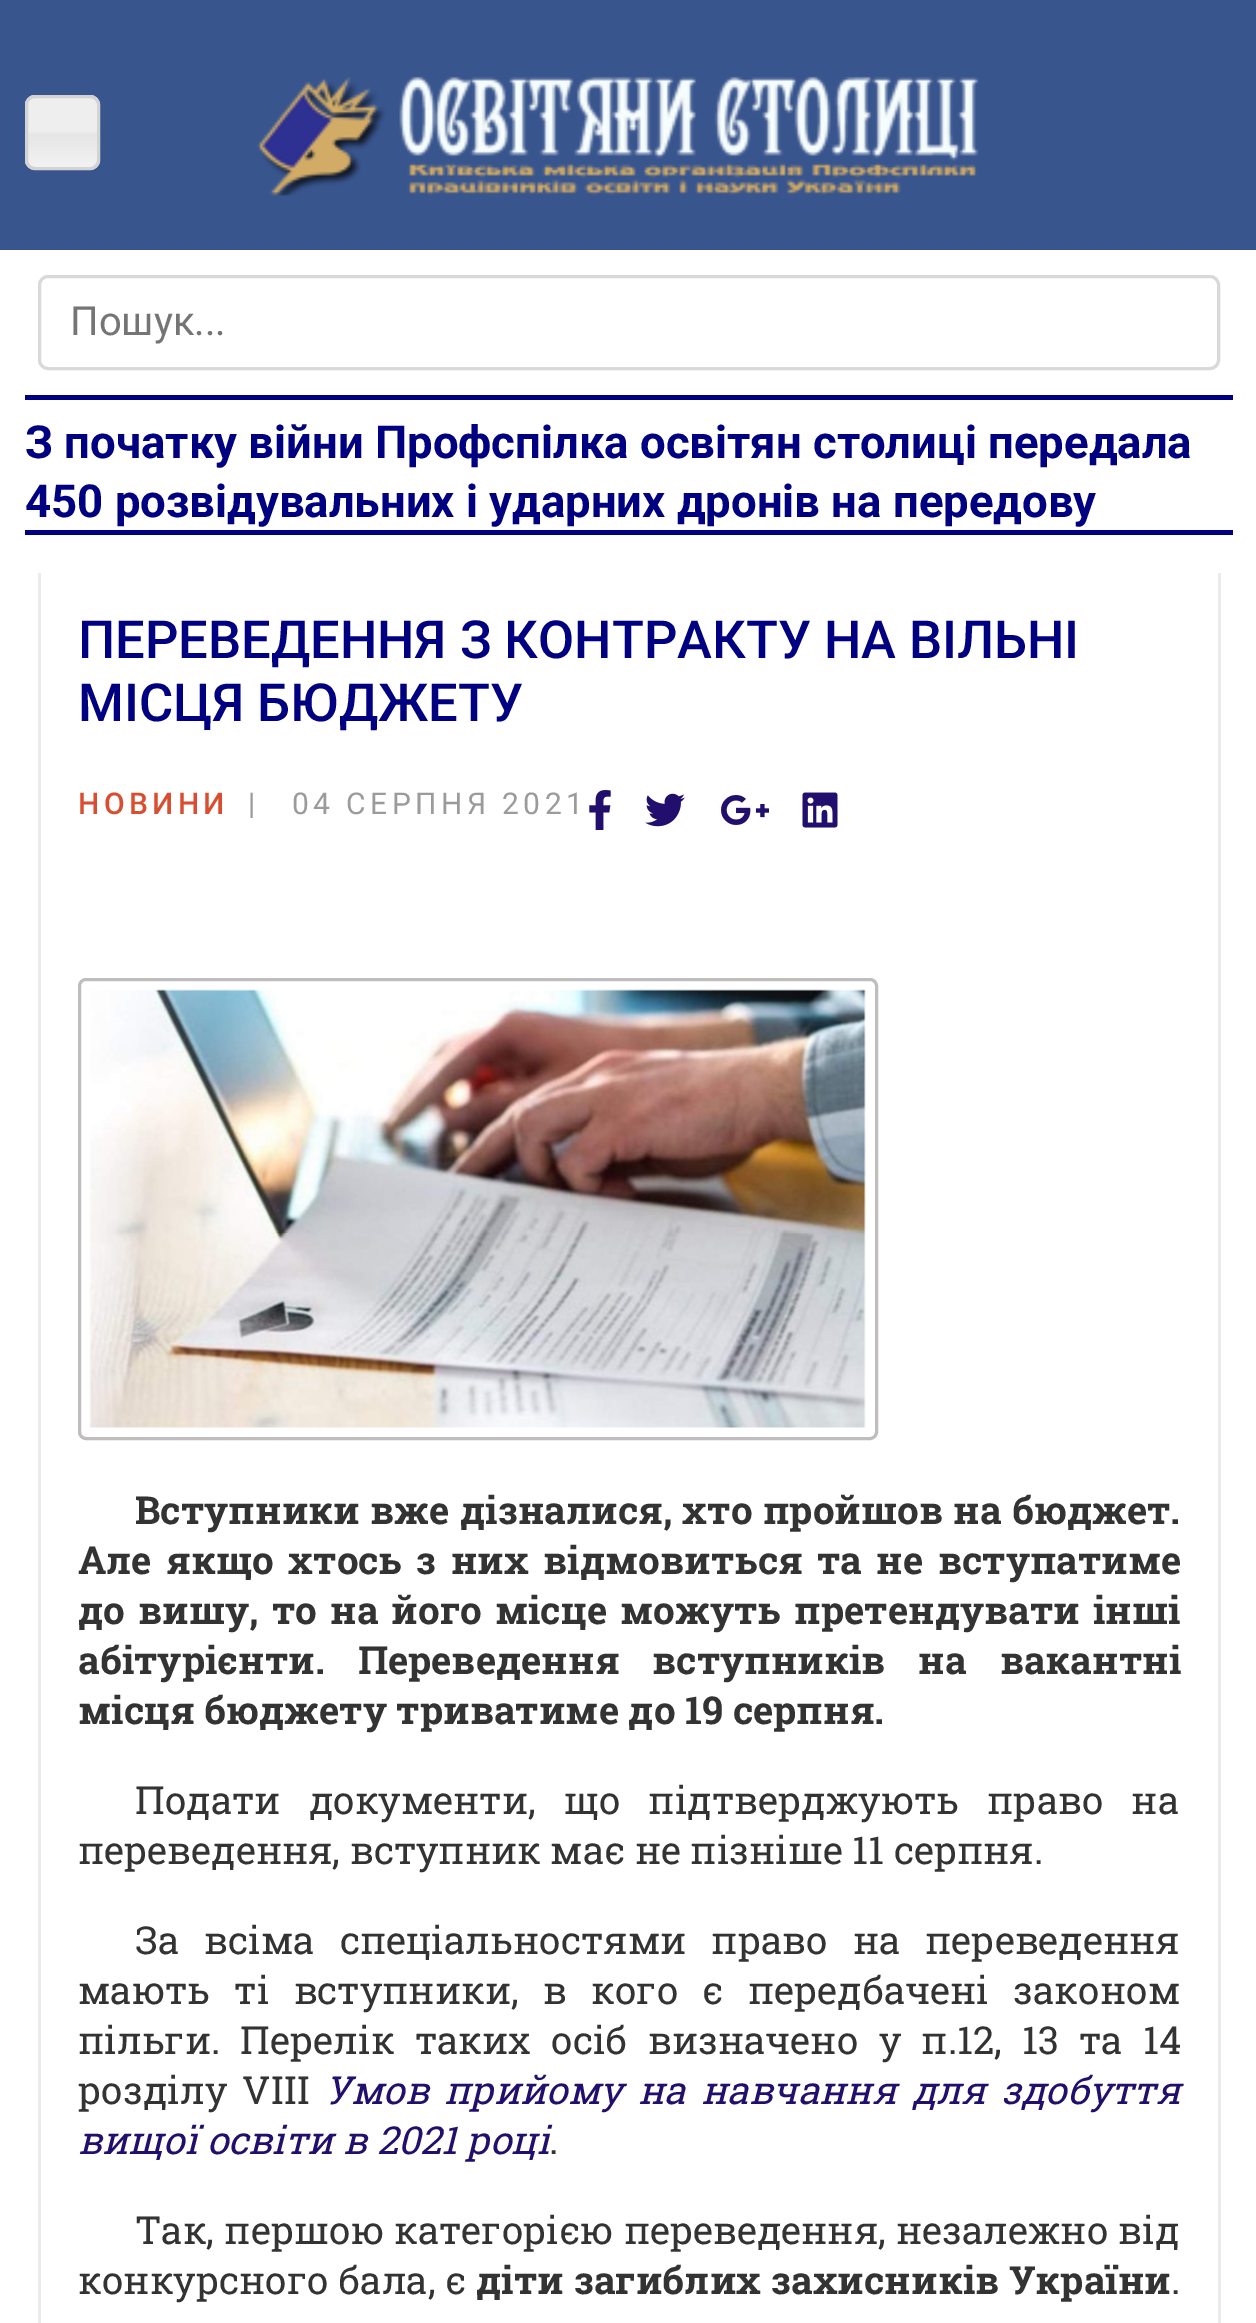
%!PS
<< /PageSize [1256 2323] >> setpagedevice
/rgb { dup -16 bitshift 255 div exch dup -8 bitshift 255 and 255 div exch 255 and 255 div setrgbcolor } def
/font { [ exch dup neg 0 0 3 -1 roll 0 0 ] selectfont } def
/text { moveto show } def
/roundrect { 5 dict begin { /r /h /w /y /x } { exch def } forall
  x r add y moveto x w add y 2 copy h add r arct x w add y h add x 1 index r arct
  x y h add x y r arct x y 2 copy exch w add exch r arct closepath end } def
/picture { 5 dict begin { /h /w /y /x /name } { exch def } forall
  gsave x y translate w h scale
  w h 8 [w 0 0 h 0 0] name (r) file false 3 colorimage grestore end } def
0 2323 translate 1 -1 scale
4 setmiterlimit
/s1 { /Roboto-Regular 40 font 16#757575 rgb } def
/s2 { /Roboto-Bold 45.5 font 16#000080 rgb } def
/s3 { /Roboto-Medium 52.5 font 16#000080 rgb } def
/s4 { /RobotoSlab-Bold 38.5 font 16#333333 rgb } def
/s5 { /RobotoSlab-Regular 38.5 font 16#333333 rgb } def
/s6 { /RobotoSlab-Italic 38.5 font 16#220F6D rgb } def
16#FFFFFF rgb
0 0 1256 2323 rectfill
16#38558E rgb
0 0 1256 250 rectfill
(pic1.raw) 25 95 75 75 picture
16#D3D3D3 rgb
3 setlinewidth
26.5 96.5 72 72 8.5 roundrect stroke
(pic2.raw) 257 76 722 120 picture
16#D9D9D9 rgb
39.5 276.5 1179 92 8.5 roundrect stroke
s1
(Пошук...) 70 335 text
16#000080 rgb
25 395 1208 5 rectfill
25 530 1208 5 rectfill
s2
(З початку війни Профспілка освітян столиці передала) 25 458 text
(450 розвідувальних і ударних дронів на передову) 25 517 text
16#EBEBEB rgb
1218 573 3 1750 rectfill
38 573 3 1750 rectfill
s3
(ПЕРЕВЕДЕННЯ З КОНТРАКТУ НА ВІЛЬНІ) 78 658 text
(МІСЦЯ БЮДЖЕТУ) 78 721 text
/Roboto-Medium 30 font
16#D94D30 rgb
78 814 moveto 4.4 0 (НОВИНИ) ashow
/Roboto-Regular 30 font
16#9B9B9B rgb
248 814 moveto 4.4 0 (|) ashow
292 814 moveto 4.4 0 (04 СЕРПНЯ 2021) ashow
(pic3.raw) 589 790 22 40 picture
(pic4.raw) 645 793 40 34 picture
(pic5.raw) 721 795 48 30 picture
(pic6.raw) 802 792 36 36 picture
16#BFBDBD rgb
79.5 979.5 797 459 6.5 roundrect stroke
(pic7.raw) 89 989 777 439 picture
/RobotoSlab-Bold 38.5 font
16#333333 rgb
135 1524 moveto 1 0 32 (Вступники вже дізналися, хто пройшов на бюджет.) widthshow
78 1574 moveto 5 0 32 (Але якщо хтось з них відмовиться та не вступатиме) widthshow
78 1624 moveto 3.75 0 32 (до вишу, то на його місце можуть претендувати інші) widthshow
78 1674 moveto 23.5 0 32 (абітурієнти. Переведення вступників на вакантні) widthshow
(місця бюджету триватиме до 19 серпня.) 78 1724 text
/RobotoSlab-Regular 38.5 font
135 1814 moveto 18.5 0 32 (Подати документи, що підтверджують право на) widthshow
(переведення, вступник має не пізніше 11 серпня.) 78 1864 text
135 1954 moveto 15.5 0 32 (За всіма спеціальностями право на переведення) widthshow
78 2004 moveto 14.75 0 32 (мають ті вступники, в кого є передбачені законом) widthshow
78 2054 moveto 10.75 0 32 (пільги. Перелік таких осіб визначено у п.12, 13 та 14) widthshow
78 2104 moveto 6 0 32 (розділу VIII) widthshow
/RobotoSlab-Italic 38.5 font
16#220F6D rgb
325 2104 moveto 6 0 32 (Умов прийому на навчання для здобуття) widthshow
(вищої освіти в 2021 році) 78 2154 text
s5
(.) 549 2154 text
135 2244 moveto 0.75 0 32 (Так, першою категорією переведення, незалежно від) widthshow
(конкурсного бала, є) 78 2294 text
/RobotoSlab-Bold 38.5 font
476 2294 moveto 0.5 0 32 (діти загиблих захисників України) widthshow
s5
(.) 1171 2294 text
showpage
